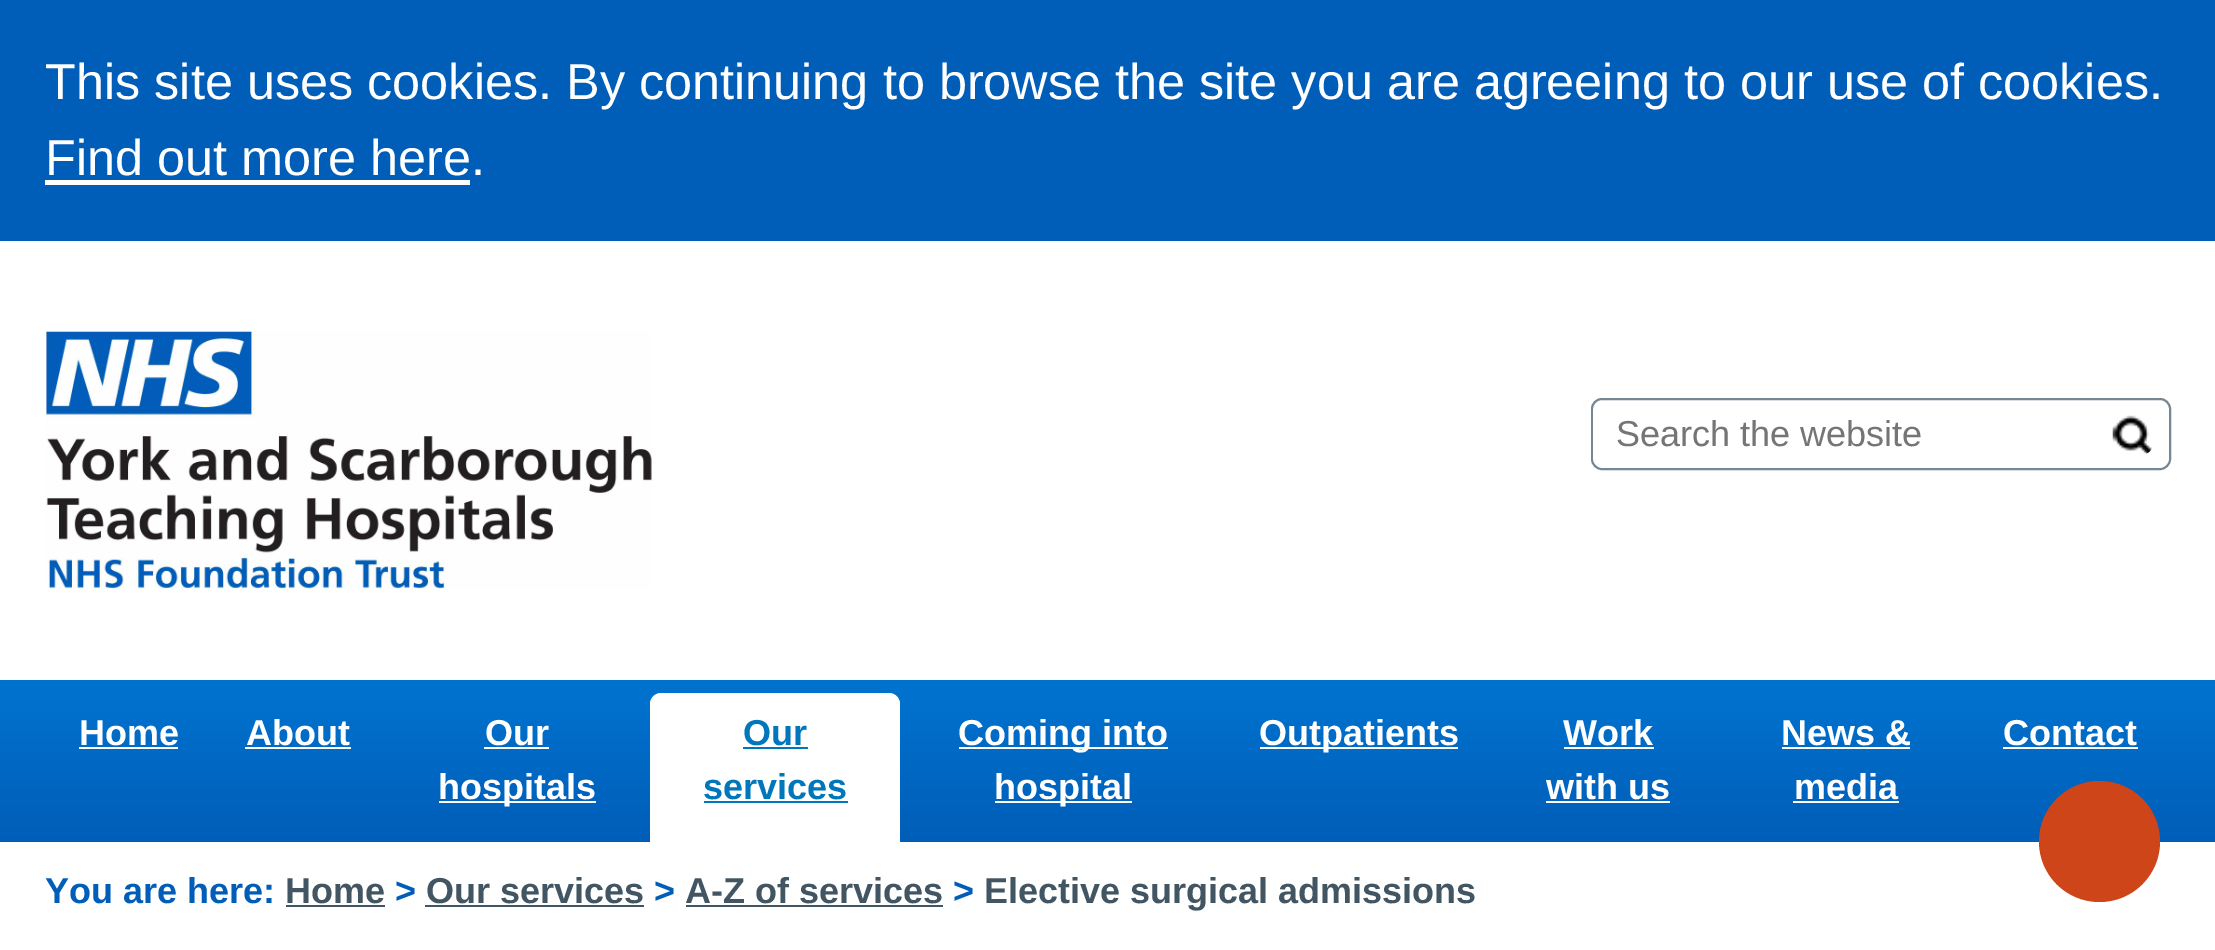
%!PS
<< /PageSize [2215 950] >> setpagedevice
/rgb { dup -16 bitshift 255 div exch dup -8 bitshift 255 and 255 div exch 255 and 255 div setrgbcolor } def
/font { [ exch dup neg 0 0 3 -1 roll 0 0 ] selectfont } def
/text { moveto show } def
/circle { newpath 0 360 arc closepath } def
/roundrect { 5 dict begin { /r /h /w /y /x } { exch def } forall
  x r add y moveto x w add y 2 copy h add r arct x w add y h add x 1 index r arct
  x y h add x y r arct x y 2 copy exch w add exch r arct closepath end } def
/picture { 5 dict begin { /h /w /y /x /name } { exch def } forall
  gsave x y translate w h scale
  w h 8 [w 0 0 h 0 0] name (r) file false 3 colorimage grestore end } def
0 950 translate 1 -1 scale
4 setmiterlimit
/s1 { /LiberationSans-Regular 50.4 font 16#FFFFFF rgb } def
/s2 { /LiberationSans-Regular 36 font 16#757575 rgb } def
/s3 { /LiberationSans-Bold 36 font 16#FFFFFF rgb } def
/s4 { /LiberationSans-Bold 36 font 16#0077BB rgb } def
/s5 { /LiberationSans-Bold 36 font 16#005EB8 rgb } def
/s6 { /LiberationSans-Bold 36 font 16#425563 rgb } def
16#FFFFFF rgb
0 0 2215 950 rectfill
16#005EB8 rgb
0 0 2215 241 rectfill
s1
(This site uses cookies. By continuing to browse the site you are agreeing to our use of cookies.) 45 99 text
(Find out more here.) 45 175 text
45 180 425 5 rectfill
(pic1.raw) 46 330 606 259 picture
16#768692 rgb
2 setlinewidth
1592 399 578 70 10 roundrect stroke
16#FFFFFF rgb
1593 401 576 67 11 roundrect fill
s2
(Search the website) 1616 446 text
(pic2.raw) 2112 415 40 39 picture
gsave 0 693 moveto 2215 693 lineto 2215 842 lineto 0 842 lineto closepath clip newpath
<< /ShadingType 2 /ColorSpace /DeviceRGB /Coords [1108 693 1108 842] /Extend [true true] /Function << /FunctionType 3 /Domain [0 1] /Functions [<< /FunctionType 2 /Domain [0 1] /C0 [0 0.447 0.808] /C1 [0 0.447 0.808] /N 1 >> << /FunctionType 2 /Domain [0 1] /C0 [0 0.447 0.808] /C1 [0 0.369 0.722] /N 1 >>] /Bounds [0.01] /Encode [0 1 0 1] >> >> shfill grestore
16#0072CE rgb
0 680 2215 13 rectfill
s3
(Home) 79 745 text
79 747 99 2 rectfill
(About) 246 745 text
245 747 106 2 rectfill
(Our) 485 745 text
484 747 65 2 rectfill
439 801 157 2 rectfill
(hospitals) 438 799 text
661 693 moveto 889 693 lineto 895 693 900 698 900 704 curveto 900 842 lineto 650 842 lineto 650 704 lineto 650 698 655 693 661 693 curveto closepath fill
s4
(Our) 743 745 text
743 747 65 2 rectfill
(services) 703 799 text
704 801 144 2 rectfill
16#FFFFFF rgb
959 747 209 2 rectfill
(Coming into) 958 745 text
995 801 137 2 rectfill
(hospital) 994 799 text
1260 747 198 2 rectfill
(Outpatients) 1259 745 text
(Work) 1563 745 text
1564 747 90 2 rectfill
(with us) 1546 799 text
1546 801 124 2 rectfill
(News &) 1781 745 text
1782 747 128 2 rectfill
(media) 1794 799 text
1793 801 106 2 rectfill
(Contact) 2003 745 text
2003 747 135 2 rectfill
s5
(You are here:) 45 903 text
s6
(Home) 285 903 text
286 905 99 2 rectfill
s5
(>) 395 903 text
s6
(Our services) 426 903 text
425 905 219 2 rectfill
s5
(>) 654 903 text
s6
(A-Z of services) 685 903 text
686 905 257 2 rectfill
s5
(>) 953 903 text
s6
(Elective surgical admissions) 984 903 text
16#CD4518 rgb
2099.5 841.5 60.5 circle fill
showpage
